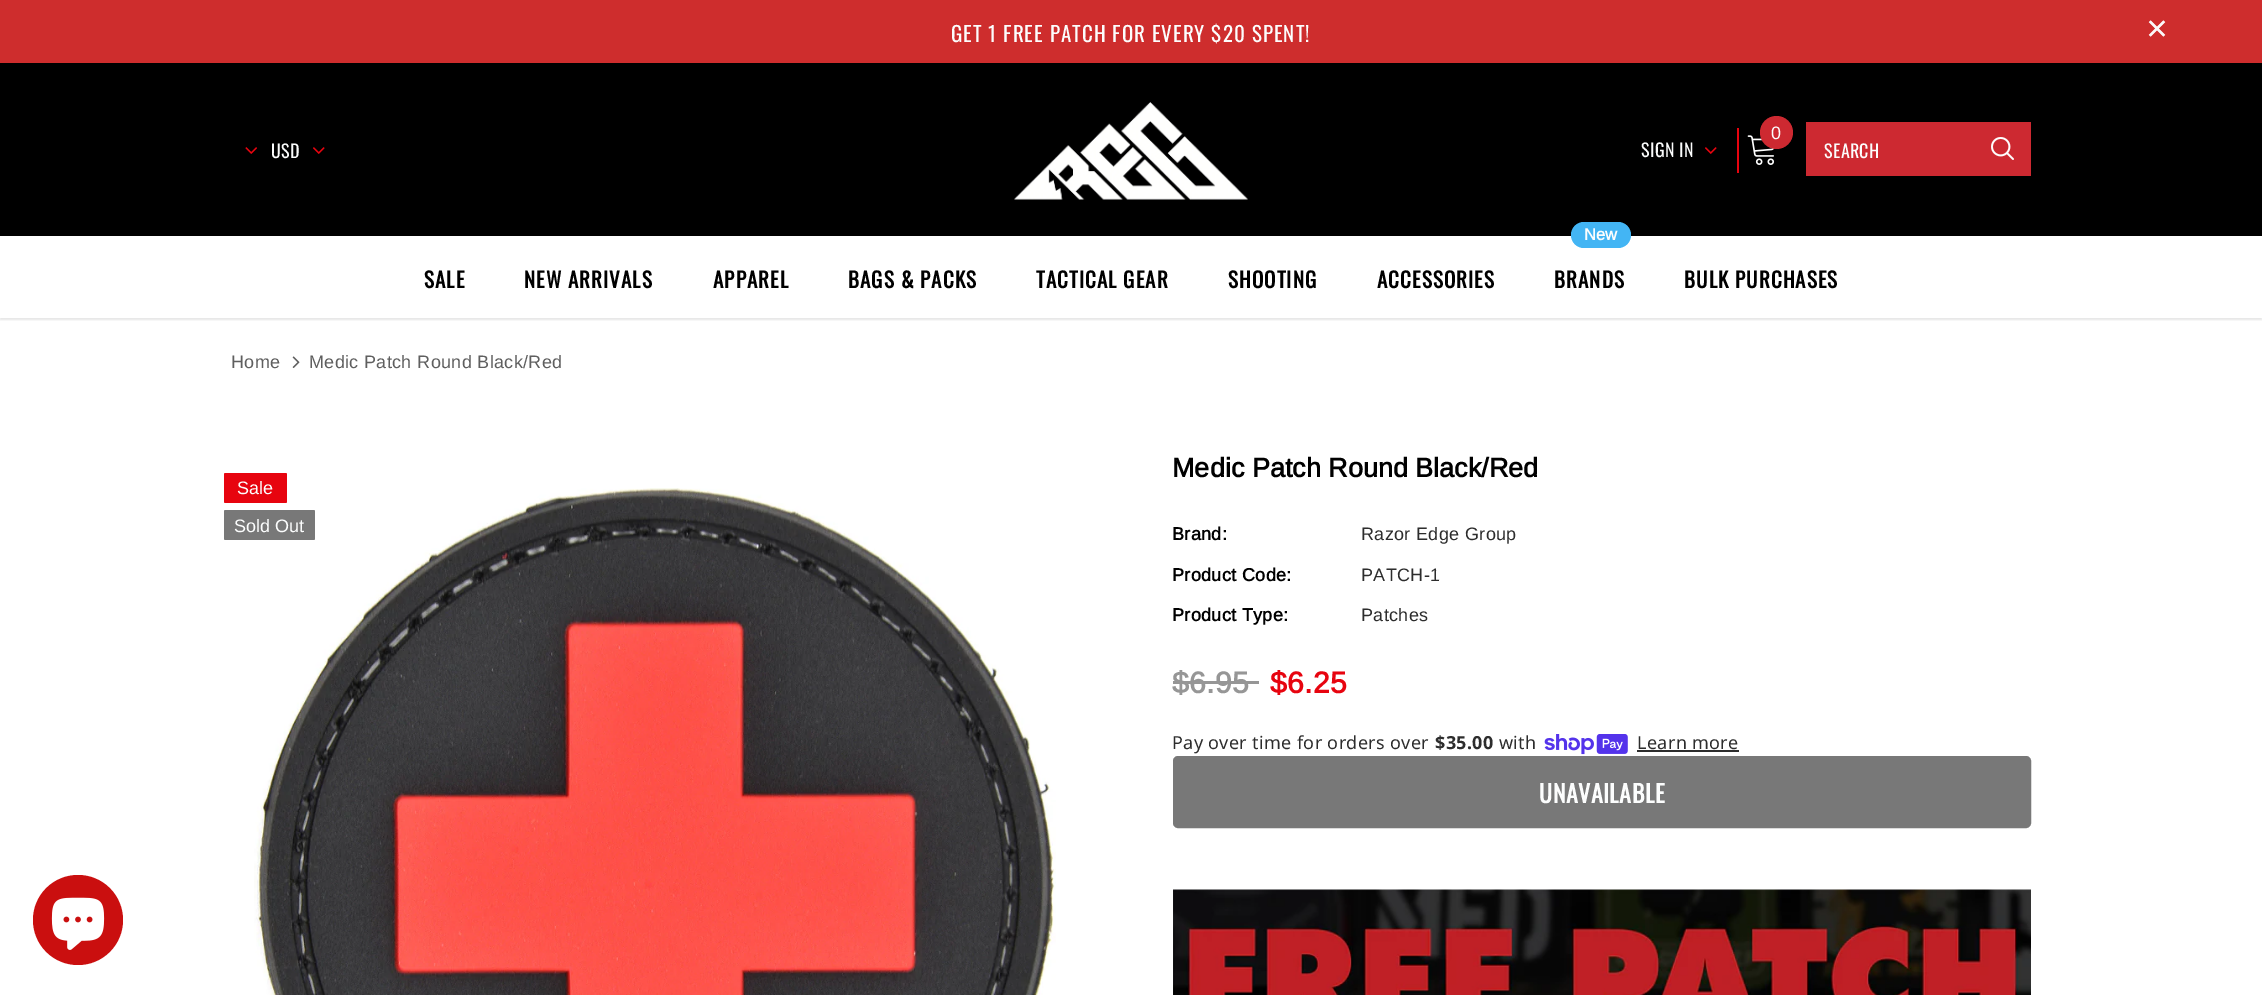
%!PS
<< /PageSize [2262 995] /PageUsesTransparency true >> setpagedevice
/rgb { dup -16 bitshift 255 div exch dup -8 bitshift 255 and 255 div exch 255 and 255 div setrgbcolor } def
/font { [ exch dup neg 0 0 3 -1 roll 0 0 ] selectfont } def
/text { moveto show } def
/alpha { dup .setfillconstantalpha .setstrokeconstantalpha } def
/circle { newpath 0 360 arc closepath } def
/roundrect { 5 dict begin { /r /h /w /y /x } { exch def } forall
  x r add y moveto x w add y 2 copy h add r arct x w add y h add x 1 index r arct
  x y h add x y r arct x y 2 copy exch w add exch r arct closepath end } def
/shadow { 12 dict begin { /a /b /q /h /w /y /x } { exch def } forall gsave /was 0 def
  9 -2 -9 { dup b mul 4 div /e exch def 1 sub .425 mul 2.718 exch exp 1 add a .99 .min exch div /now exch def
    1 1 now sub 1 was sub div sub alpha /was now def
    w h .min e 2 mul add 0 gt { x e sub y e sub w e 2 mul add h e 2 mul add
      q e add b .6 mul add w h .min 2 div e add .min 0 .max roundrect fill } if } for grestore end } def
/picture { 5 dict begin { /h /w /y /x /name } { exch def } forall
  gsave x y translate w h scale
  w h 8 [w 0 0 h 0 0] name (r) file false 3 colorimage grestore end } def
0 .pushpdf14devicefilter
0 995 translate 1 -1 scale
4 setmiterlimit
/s1 { /Arimo-Bold 16.5 font 16#FCFDFD rgb } def
/s2 { /Arimo-Regular 18 font 16#FCFDFD rgb } def
/s3 { /Arimo-Bold 27 font 16#000000 rgb } def
16#FFFFFF rgb
0 0 2262 995 rectfill
16#CE2D2D rgb
0 0 2262 63 rectfill
/Oswald-Regular 21 font
16#FCFDFD rgb
951 42 moveto 1.05 0 (GET 1 FREE PATCH FOR EVERY $20 SPENT!) ashow
(pic1.raw) 2148 20 18 17 picture
16#000000 rgb
0 63 2262 173 rectfill
(pic2.raw) 245 147 12 7 picture
/Oswald-Regular 18 font
16#FCFDFD rgb
271 158 moveto 0.35 0 (USD) ashow
(pic3.raw) 313 147 12 7 picture
(pic4.raw) 1014 102 234 98 picture
(pic5.raw) 1747 135 28 30 picture
16#CD2931 rgb
1776.5 132.5 16.5 circle fill
/Arimo-Regular 18 font
16#FCFDFD rgb
1771 139 moveto 0.35 0 (0) ashow
/Oswald-Regular 18 font
1641 157 moveto 0.35 0 (SIGN IN) ashow
(pic3.raw) 1705 147 12 7 picture
16#E7040F rgb
1737 128 2 45 rectfill
16#CD2931 rgb
1806 122 225 54 rectfill
16#FCFDFD rgb
1824 158 moveto 0.35 0 (SEARCH) ashow
(pic6.raw) 1991 137 23 23 picture
gsave
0 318 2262 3 rectclip
16#000000 rgb
0 237 2262 83 0 1 0.1 shadow
grestore
/Oswald-Bold 21 font
16#000000 rgb
424 288 moveto 1.05 0 (SALE) ashow
524 288 moveto 1.05 0 (NEW ARRIVALS) ashow
713 288 moveto 1.05 0 (APPAREL) ashow
848 288 moveto 1.05 0 (BAGS & PACKS) ashow
1036 288 moveto 1.05 0 (TACTICAL GEAR) ashow
1228 288 moveto 1.05 0 (SHOOTING) ashow
1377 288 moveto 1.05 0 (ACCESSORIES) ashow
16#43B5F4 rgb
1571 222 60 26 13 roundrect fill
s1
(New) 1584 240 text
/Oswald-Bold 21 font
16#000000 rgb
1554 288 moveto 1.05 0 (BRANDS) ashow
1684 288 moveto 1.05 0 (BULK PURCHASES) ashow
/Arimo-Regular 18 font
16#5F5F5F rgb
231 368 moveto 0.35 0 (Home) ashow
(pic7.raw) 292 356 8 12 picture
309 368 moveto 0.35 0 (Medic Patch Round Black/Red) ashow
(pic8.raw) 254 488 802 507 picture
16#E7040F rgb
224 473 63 30 1.5 roundrect fill
s2
(Sale) 237 494 text
16#787878 rgb
224 510 91 30 1.5 roundrect fill
s2
(Sold Out) 234 532 text
s3
(Medic Patch Round Black/Red) 1172 477 text
/Arimo-Bold 18 font
1172 540 moveto 0.35 0 (Brand:) ashow
/Arimo-Regular 18 font
16#2D2D2D rgb
1361 540 moveto 0.35 0 (Razor Edge Group) ashow
/Arimo-Bold 18 font
16#000000 rgb
1172 581 moveto 0.35 0 (Product Code:) ashow
/Arimo-Regular 18 font
16#2D2D2D rgb
1361 581 moveto 0.35 0 (PATCH-1) ashow
/Arimo-Bold 18 font
16#000000 rgb
1172 621 moveto 0.35 0 (Product Type:) ashow
/Arimo-Regular 18 font
16#2D2D2D rgb
1361 621 moveto 0.35 0 (Patches) ashow
/Arimo-Bold 30 font
16#969696 rgb
1172 693 moveto 0.35 0 ($6.95) ashow
1173 681 86 3 rectfill
16#E7040F rgb
1270 693 moveto 0.35 0 ($6.25) ashow
/NotoSans-Regular 18 font
16#2D2D2D rgb
1172 749 moveto 0.35 0 (Pay over time for orders over) ashow
/NotoSans-Bold 18 font
1435 749 moveto 0.35 0 ($35.00) ashow
/NotoSans-Regular 18 font
1499 749 moveto 0.35 0 (with) ashow
(pic9.raw) 1544 734 84 21 picture
1637 749 moveto 0.35 0 (Learn more) ashow
1637 750 102 2 rectfill
16#787878 rgb
1174 757 856 70 4 roundrect gsave fill grestore
2 setlinewidth
stroke
/Oswald-Bold 24 font
16#FCFDFD rgb
1539 803 moveto 0.5 0 (UNAVAILABLE) ashow
(pic10.raw) 1173 889 858 106 picture
16#CA0F0F rgb
78 920 45 circle fill
(pic11.raw) 51 897 54 53 picture
.poppdf14devicefilter showpage
